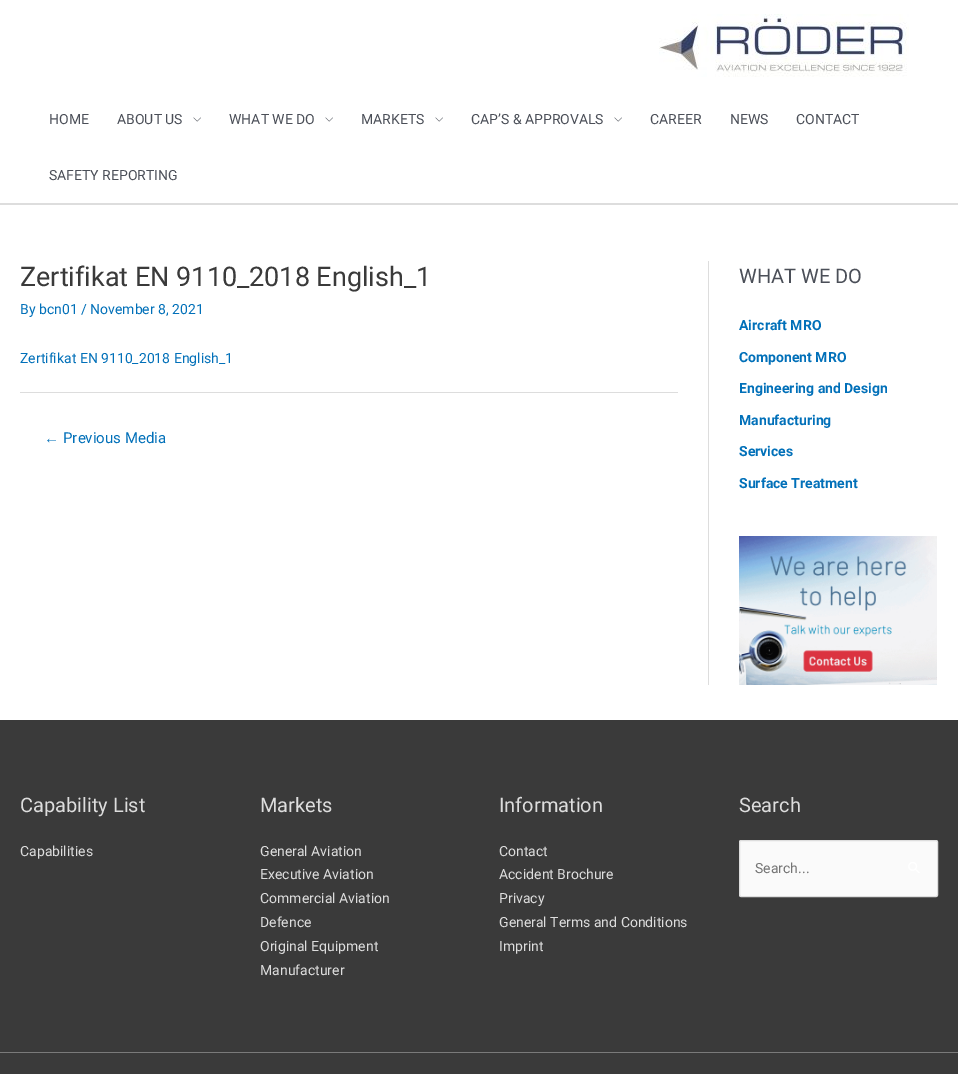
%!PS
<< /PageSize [958 1074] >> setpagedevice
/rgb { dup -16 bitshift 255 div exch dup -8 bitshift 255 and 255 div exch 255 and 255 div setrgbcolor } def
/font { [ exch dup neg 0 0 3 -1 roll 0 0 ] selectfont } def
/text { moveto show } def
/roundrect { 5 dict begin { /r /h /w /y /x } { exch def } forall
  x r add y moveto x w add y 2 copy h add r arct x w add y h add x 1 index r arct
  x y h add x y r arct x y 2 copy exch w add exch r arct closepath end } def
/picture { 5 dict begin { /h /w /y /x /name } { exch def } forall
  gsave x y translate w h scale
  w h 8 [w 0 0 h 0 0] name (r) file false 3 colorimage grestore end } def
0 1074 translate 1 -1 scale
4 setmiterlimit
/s1 { /Roboto-Regular 14 font 16#4B4F58 rgb } def
/s2 { /Roboto-Regular 27 font 16#3A3A3A rgb } def
/s3 { /Roboto-Regular 14 font 16#0170B9 rgb } def
/s4 { /LiberationSans-Regular 15 font 16#0170B9 rgb } def
/s5 { /Roboto-Regular 15 font 16#0170B9 rgb } def
/s6 { /Roboto-Regular 20 font 16#4B4F58 rgb } def
/s7 { /Roboto-Bold 14 font 16#0170B9 rgb } def
/s8 { /Roboto-Regular 20 font 16#DDDDDD rgb } def
/s9 { /Roboto-Regular 14 font 16#DDDDDD rgb } def
/s10 { /Roboto-Regular 14 font 16#757575 rgb } def
16#FFFFFF rgb
0 0 958 1074 rectfill
16#DDDDDD rgb
0 203 958 2 rectfill
(pic1.raw) 659 14 250 63 picture
s1
(HOME) 49 124 text
(ABOUT US) 117 124 text
(pic2.raw) 193 117 8 5 picture
(WHAT WE DO) 229 124 text
(pic2.raw) 325 117 8 5 picture
(MARKETS) 361 124 text
(pic2.raw) 435 117 8 5 picture
(CAP’S & APPROVALS) 471 124 text
(pic2.raw) 614 117 8 5 picture
(CAREER) 650 124 text
(NEWS) 730 124 text
(CONTACT) 796 124 text
(SAFETY REPORTING) 49 180 text
s2
(Zertifikat EN 9110_2018 English_1) 20 286 text
s3
(By bcn01 / November 8, 2021) 20 314 text
(Zertifikat EN 9110_2018 English_1) 20 363 text
16#DDDDDD rgb
20 392 658 1 rectfill
s4
(←) 44 443 text
s5
(Previous Media) 63 443 text
16#DDDDDD rgb
708 261 1 424 rectfill
s6
(WHAT WE DO) 739 283 text
s7
(Aircraft MRO) 739 330 text
(Component MRO) 739 362 text
(Engineering and Design) 739 393 text
(Manufacturing) 739 425 text
(Services) 739 456 text
(Surface Treatment) 739 488 text
(pic3.raw) 739 536 198 149 picture
16#3A3A3A rgb
0 720 958 332 rectfill
s8
(Capability List) 20 812 text
s9
(Capabilities) 20 856 text
s8
(Markets) 260 812 text
s9
(General Aviation) 260 856 text
(Executive Aviation) 260 879 text
(Commercial Aviation) 260 903 text
(Defence) 260 927 text
(Original Equipment) 260 951 text
(Manufacturer) 260 975 text
s8
(Information) 499 812 text
s9
(Contact) 499 856 text
(Accident Brochure) 499 879 text
(Privacy) 499 903 text
(General Terms and Conditions) 499 927 text
(Imprint) 499 951 text
s8
(Search) 739 812 text
16#FAFAFA rgb
739.5 840.5 198 56 1.5 roundrect gsave fill grestore
16#DDDDDD rgb
stroke
s10
(Search...) 755 873 text
(pic4.raw) 908 862 12 11 picture
16#7A7A7A rgb
0 1052 958 1 rectfill
16#3A3A3A rgb
0 1053 958 21 rectfill
showpage
